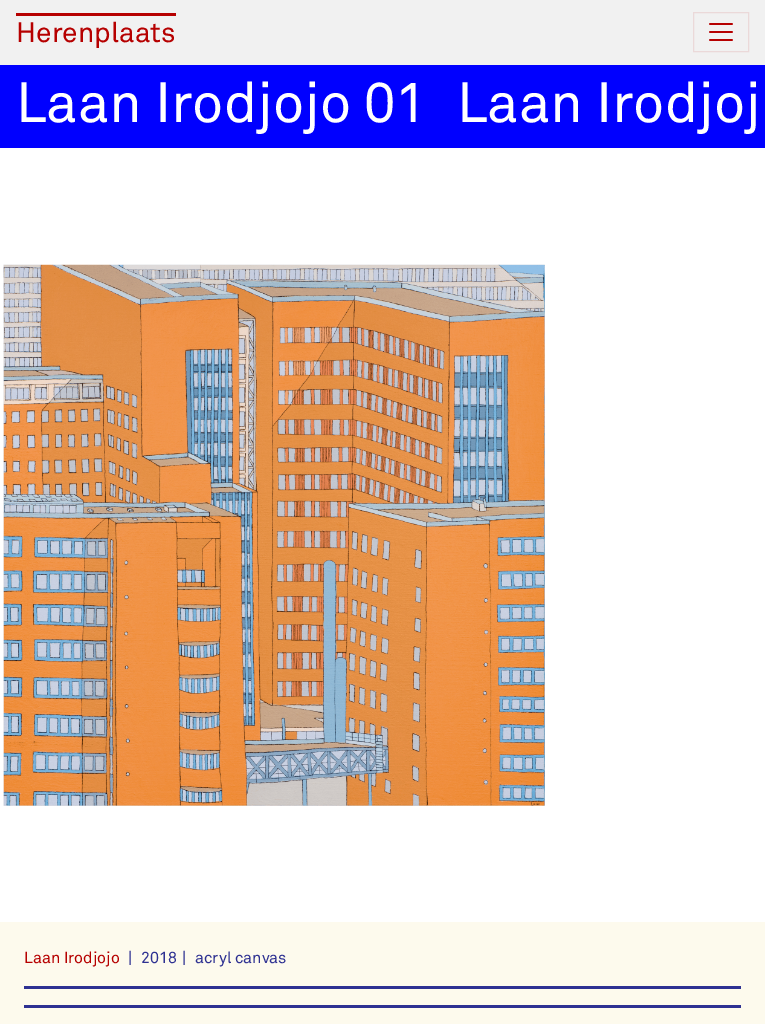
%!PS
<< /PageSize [765 1024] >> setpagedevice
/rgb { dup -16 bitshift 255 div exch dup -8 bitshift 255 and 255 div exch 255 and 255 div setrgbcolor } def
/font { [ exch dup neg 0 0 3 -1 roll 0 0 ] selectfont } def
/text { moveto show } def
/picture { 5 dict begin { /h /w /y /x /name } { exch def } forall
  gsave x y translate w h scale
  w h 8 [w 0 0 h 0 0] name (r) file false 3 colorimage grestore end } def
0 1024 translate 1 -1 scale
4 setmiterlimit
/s1 { /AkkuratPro-Regular 28 font 16#B60000 rgb } def
/s2 { /AkkuratPro-Regular 56 font 16#FFFFFF rgb } def
/s3 { /AkkuratPro-Regular 16 font 16#B60000 rgb } def
/s4 { /AkkuratPro-Regular 16 font 16#2E3192 rgb } def
16#FFFFFF rgb
0 0 765 1024 rectfill
16#F1F1F1 rgb
0 0 765 65 rectfill
16#B60000 rgb
16 13 160 3 rectfill
s1
(Herenplaats) 16 42 text
16#EBD9D9 rgb
693.5 12.5 55 39 rectstroke
(pic1.raw) 709 23 24 18 picture
16#0000FF rgb
0 65 765 83 rectfill
s2
(Laan Irodjojo 01) 16 122 text
(Laan Irodjoj) 457 122 text
(pic2.raw) 3 264 542 542 picture
16#FDFAED rgb
0 922 765 102 rectfill
s3
(Laan Irodjojo) 24 963 text
s4
(|) 128 963 text
(2018) 141 963 text
(|) 182 963 text
(acryl canvas) 195 963 text
24 986 717 3 rectfill
24 1005 717 3 rectfill
showpage
